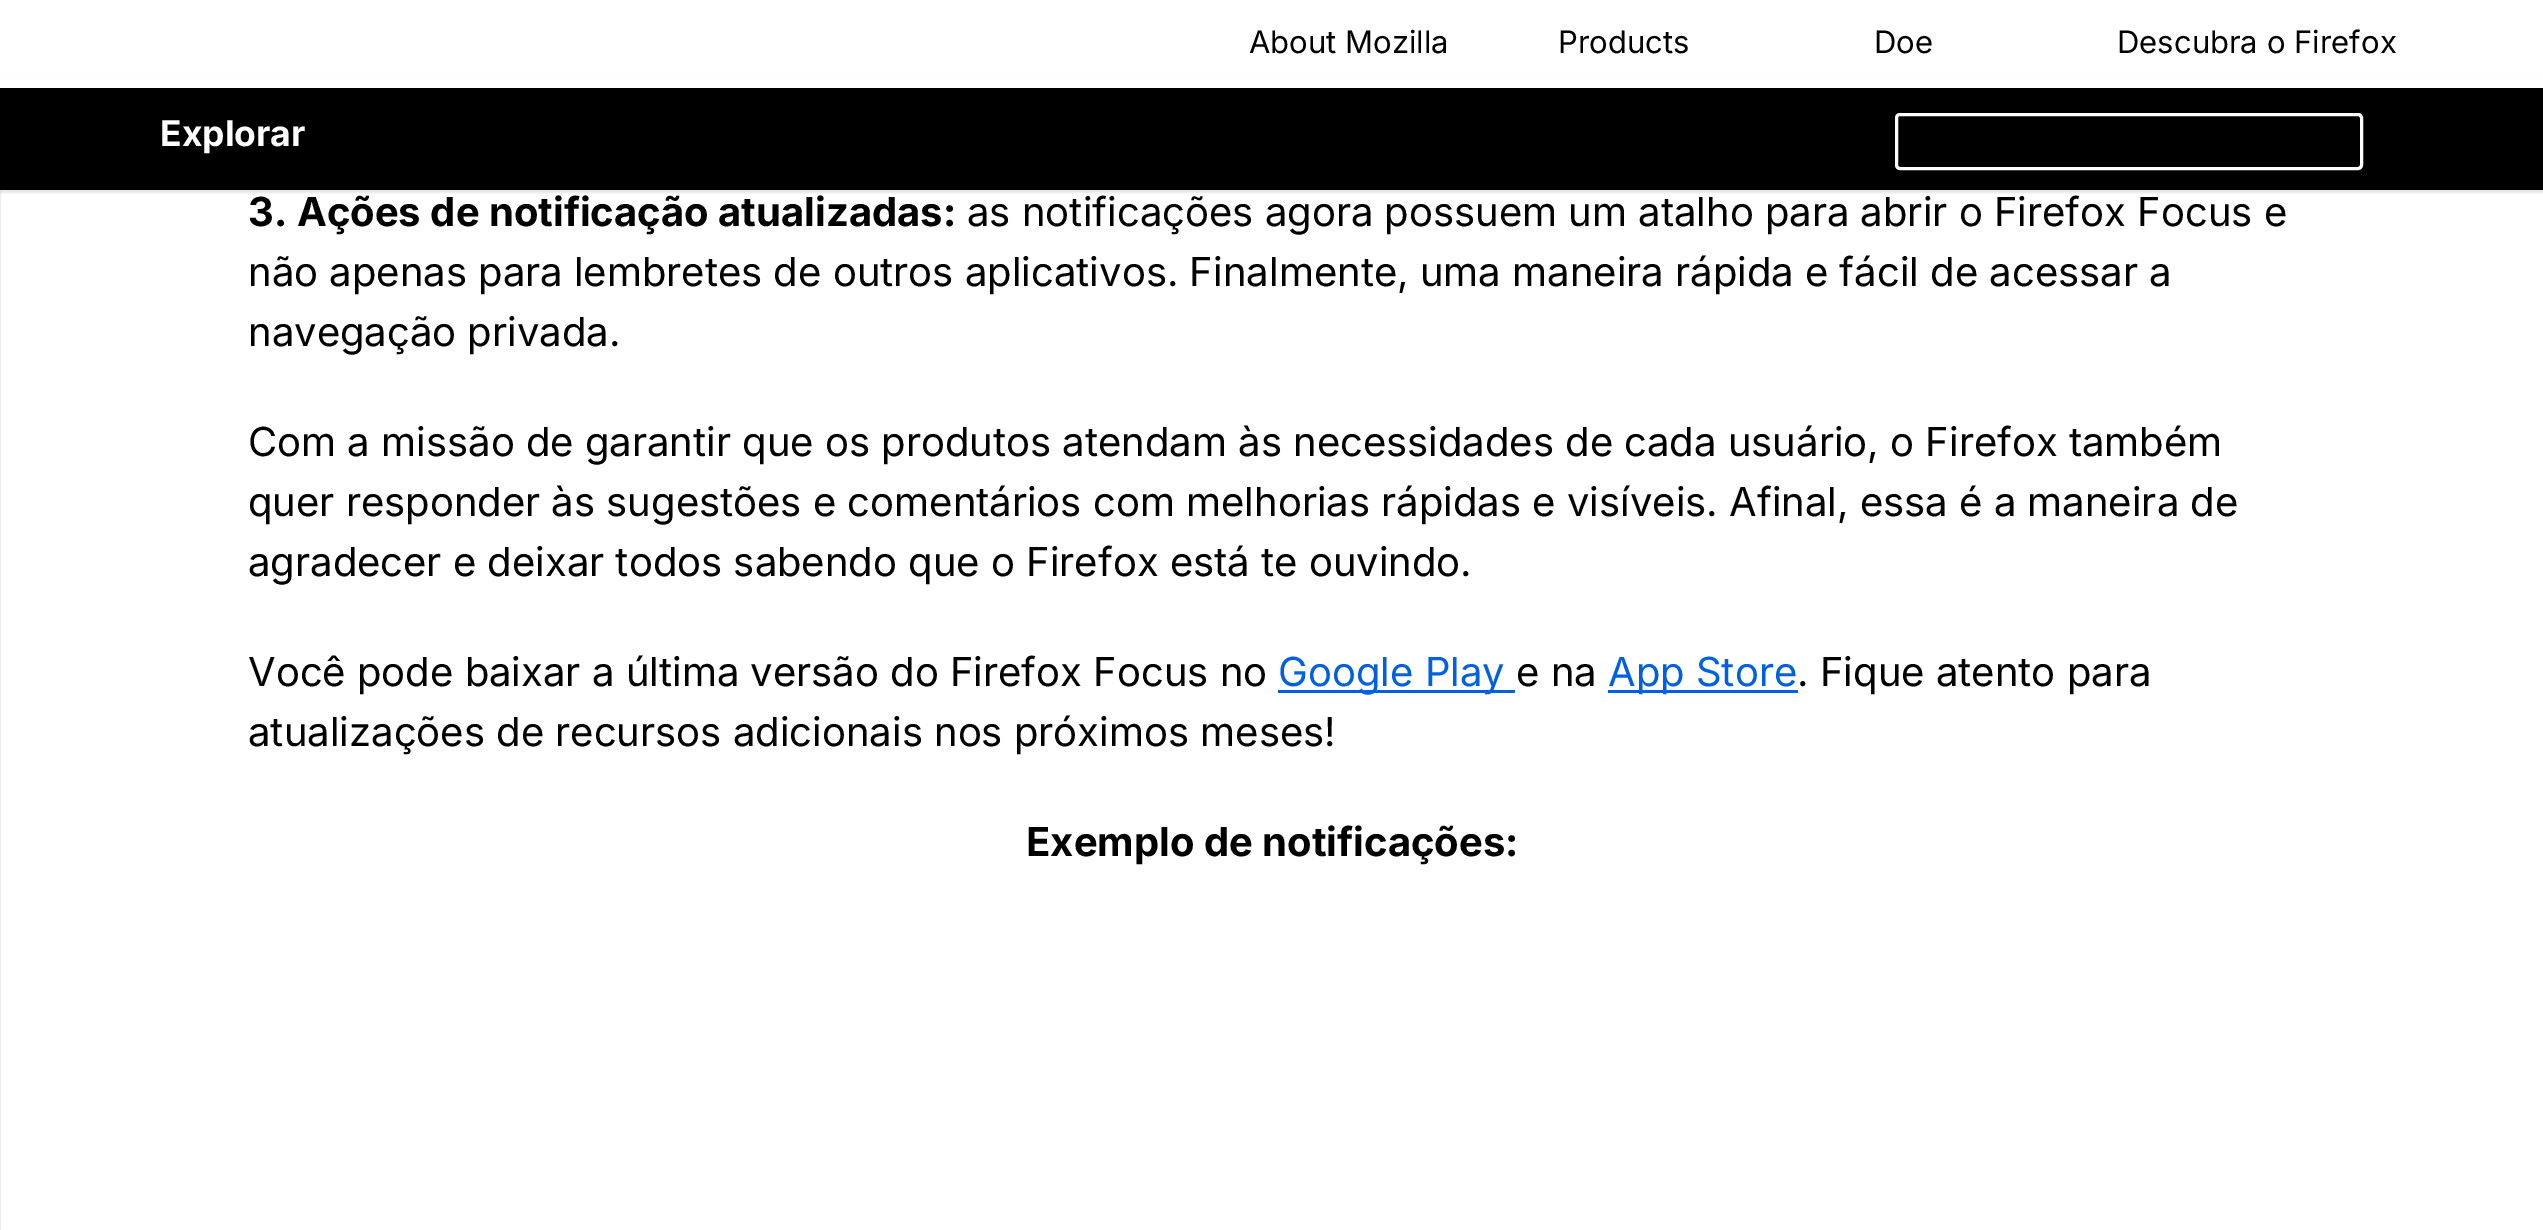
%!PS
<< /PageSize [2543 1230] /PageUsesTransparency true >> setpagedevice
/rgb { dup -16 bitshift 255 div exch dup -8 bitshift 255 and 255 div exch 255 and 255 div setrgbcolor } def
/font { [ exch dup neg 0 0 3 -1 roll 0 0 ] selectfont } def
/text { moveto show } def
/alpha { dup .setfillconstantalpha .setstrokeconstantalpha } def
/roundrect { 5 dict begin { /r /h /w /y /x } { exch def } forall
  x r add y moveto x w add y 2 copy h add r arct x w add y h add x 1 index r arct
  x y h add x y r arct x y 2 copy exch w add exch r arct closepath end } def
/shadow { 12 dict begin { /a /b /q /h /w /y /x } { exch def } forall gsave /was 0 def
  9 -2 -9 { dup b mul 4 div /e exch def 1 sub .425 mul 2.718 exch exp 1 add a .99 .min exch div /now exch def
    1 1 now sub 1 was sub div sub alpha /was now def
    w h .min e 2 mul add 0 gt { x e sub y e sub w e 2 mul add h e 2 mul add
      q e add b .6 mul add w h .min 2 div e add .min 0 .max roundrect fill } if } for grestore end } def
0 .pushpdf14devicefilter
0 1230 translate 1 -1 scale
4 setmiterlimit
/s1 { /Inter-Regular 31 font 16#000000 rgb } def
/s2 { /Inter-Bold 35.5 font 16#FFFFFF rgb } def
/s3 { /Inter-Bold 40 font 16#000000 rgb } def
/s4 { /Inter-Regular 40 font 16#000000 rgb } def
/s5 { /Inter-Regular 40 font 16#0060DF rgb } def
16#FFFFFF rgb
0 0 2543 1230 rectfill
16#000000 rgb
0 80 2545 113 0 1 0.1 shadow
16#FFFFFF rgb
0 79 2543 9 rectfill
s1
(About Mozilla) 1249 53 text
(Products) 1558 53 text
(Doe) 1874 53 text
(Descubra o Firefox) 2117 53 text
-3 175 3 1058 0 1 0.2 shadow
0 88 2543 102 rectfill
s2
(Explorar) 160 146 text
3 setlinewidth
1896.5 114.5 465 54 3.5 roundrect stroke
s3
(3. Ações de notificação atualizadas:) 248 226 text
s4
(as notificações agora possuem um atalho para abrir o Firefox Focus e) 967 226 text
(não apenas para lembretes de outros aplicativos. Finalmente, uma maneira rápida e fácil de acessar a) 248 286 text
(navegação privada.) 248 346 text
(Com a missão de garantir que os produtos atendam às necessidades de cada usuário, o Firefox também) 248 456 text
(quer responder às sugestões e comentários com melhorias rápidas e visíveis. Afinal, essa é a maneira de) 248 516 text
(agradecer e deixar todos sabendo que o Firefox está te ouvindo.) 248 576 text
(Você pode baixar a última versão do Firefox Focus no) 248 686 text
16#0060DF rgb
1278 690 237 3 rectfill
(Google Play) 1278 686 text
s4
(e na) 1516 686 text
16#0060DF rgb
1608 690 190 3 rectfill
(App Store) 1608 686 text
s4
(. Fique atento para) 1797 686 text
(atualizações de recursos adicionais nos próximos meses!) 248 746 text
s3
(Exemplo de notificações:) 1026 856 text
.poppdf14devicefilter showpage
